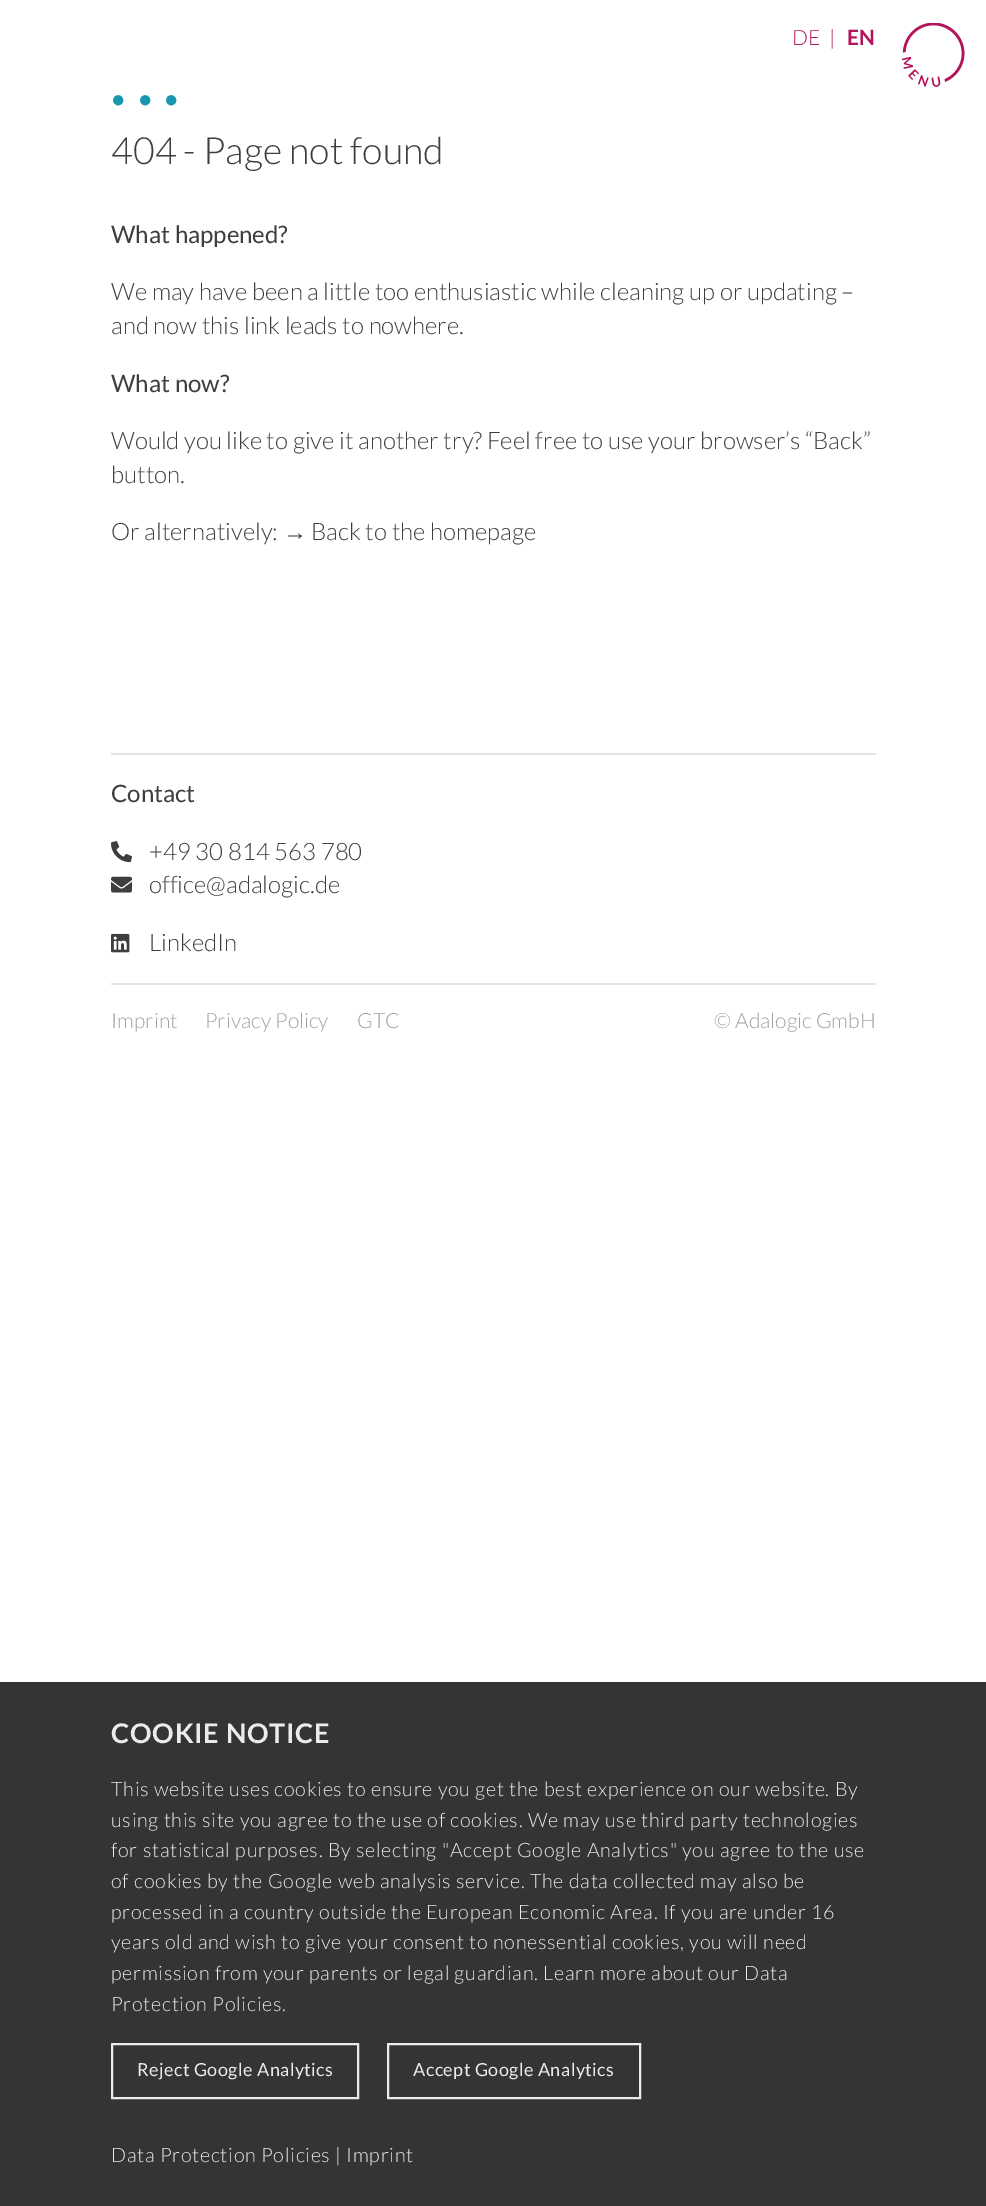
%!PS
<< /PageSize [986 2206] >> setpagedevice
/rgb { dup -16 bitshift 255 div exch dup -8 bitshift 255 and 255 div exch 255 and 255 div setrgbcolor } def
/font { [ exch dup neg 0 0 3 -1 roll 0 0 ] selectfont } def
/text { moveto show } def
/picture { 5 dict begin { /h /w /y /x /name } { exch def } forall
  gsave x y translate w h scale
  w h 8 [w 0 0 h 0 0] name (r) file false 3 colorimage grestore end } def
0 2206 translate 1 -1 scale
4 setmiterlimit
/s1 { /Lato-Light 21 font 16#B21359 rgb } def
/s2 { /Lato-Bold 21 font 16#B21359 rgb } def
/s3 { /Lato-Light 37.5 font 16#3E3E3E rgb } def
/s4 { /Lato-Regular 24 font 16#3E3E3E rgb } def
/s5 { /Lato-Light 24 font 16#3E3E3E rgb } def
/s6 { /LiberationSans-Regular 24 font 16#3E3E3E rgb } def
/s7 { /Lato-Light 21 font 16#A2A2A2 rgb } def
16#FFFFFF rgb
0 0 986 2206 rectfill
s1
(DE) 792 45 text
(|) 829 45 text
s2
(EN) 847 45 text
(pic1.raw) 902 23 63 64 picture
/LiberationSans-Regular 24 font
16#1997AE rgb
111 107 moveto -2 0 32 3.75 0 (● ● ●) awidthshow
s3
(404 - Page not found) 111 164 text
s4
(What happened?) 111 243 text
s5
(We may have been a little too enthusiastic while cleaning up or updating –) 111 300 text
(and now this link leads to nowhere.) 111 334 text
s4
(What now?) 111 392 text
s5
(Would you like to give it another try? Feel free to use your browser’s “Back”) 111 449 text
(button.) 111 483 text
(Or alternatively:) 111 540 text
s6
(→) 283 540 text
s5
(Back to the homepage) 311 540 text
16#E3E3E3 rgb
111 753 765 2 rectfill
s4
(Contact) 111 802 text
(pic2.raw) 111 841 21 22 picture
s5
(+49 30 814 563 780) 149 860 text
(pic3.raw) 111 876 21 17 picture
(office@adalogic.de) 149 893 text
(pic4.raw) 111 933 19 20 picture
(LinkedIn) 149 951 text
16#E3E3E3 rgb
111 983 765 2 rectfill
s7
(Imprint) 111 1028 text
(Privacy Policy) 205 1028 text
(GTC) 357 1028 text
(© Adalogic GmbH) 714 1028 text
16#343434 rgb
0 1682 986 524 rectfill
/Lato-Bold 27 font
16#EBEBEB rgb
111 1743 moveto 0.75 0 (COOKIE NOTICE) ashow
/Lato-Light 19.8 font
111 1796 moveto 0.7 0 (This website uses cookies to ensure you get the best experience on our website. By) ashow
111 1827 moveto 0.7 0 (using this site you agree to the use of cookies. We may use third party technologies) ashow
111 1857 moveto 0.7 0 (for statistical purposes. By selecting "Accept Google Analytics" you agree to the use) ashow
111 1888 moveto 0.7 0 (of cookies by the Google web analysis service. The data collected may also be) ashow
111 1919 moveto 0.7 0 (processed in a country outside the European Economic Area. If you are under 16) ashow
111 1949 moveto 0.7 0 (years old and wish to give your consent to nonessential cookies, you will need) ashow
111 1980 moveto 0.7 0 (permission from your parents or legal guardian. Learn more about our Data) ashow
111 2011 moveto 0.7 0 (Protection Policies.) ashow
2 setlinewidth
112 2044 246 54 rectstroke
/Lato-Regular 18 font
137 2076 moveto 0.45 0 (Reject Google Analytics) ashow
388 2044 252 54 rectstroke
413 2076 moveto 0.45 0 (Accept Google Analytics) ashow
/Lato-Light 19.8 font
111 2162 moveto 0.7 0 (Data Protection Policies | Imprint) ashow
showpage
